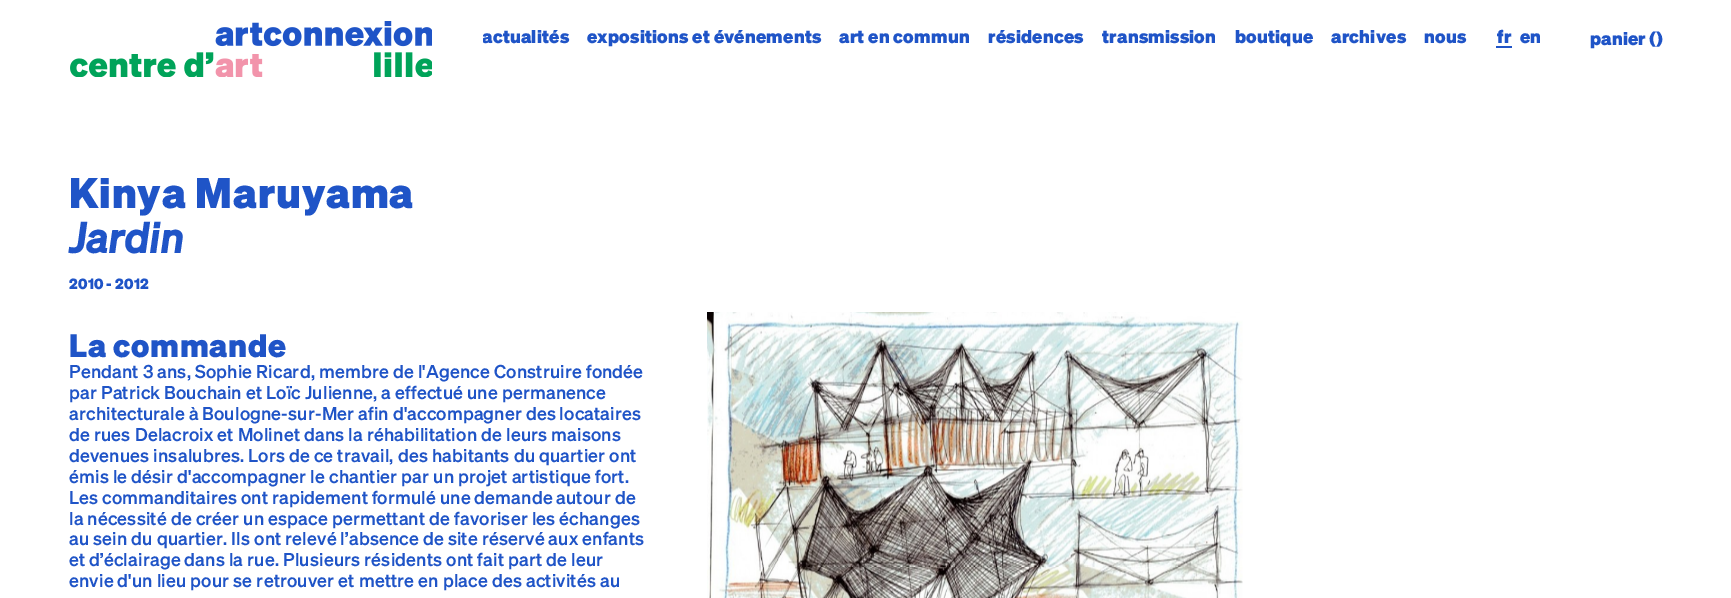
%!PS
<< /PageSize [1731 598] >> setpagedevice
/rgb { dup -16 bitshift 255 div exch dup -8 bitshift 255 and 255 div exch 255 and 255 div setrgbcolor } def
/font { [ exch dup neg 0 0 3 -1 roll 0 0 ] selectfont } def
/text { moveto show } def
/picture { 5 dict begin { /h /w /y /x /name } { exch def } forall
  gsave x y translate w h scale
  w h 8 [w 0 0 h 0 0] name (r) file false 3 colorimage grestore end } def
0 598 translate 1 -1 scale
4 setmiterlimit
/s1 { /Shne-ExtraBold 18.2 font 16#1F54C7 rgb } def
16#FFFFFF rgb
0 0 1731 598 rectfill
(pic1.raw) 70 21 362 56 picture
gsave
483 28 1050 25 rectclip
/Shne-ExtraBold 18.2 font
16#1F54C7 rgb
482 43 moveto 0.18 0 (actualités) ashow
grestore
/Shne-ExtraBold 18.2 font
16#1F54C7 rgb
587 43 moveto 0.18 0 (expositions et événements) ashow
839 43 moveto 0.18 0 (art en commun) ashow
988 43 moveto 0.18 0 (résidences) ashow
1102 43 moveto 0.18 0 (transmission) ashow
1235 43 moveto 0.18 0 (boutique) ashow
1331 43 moveto 0.18 0 (archives) ashow
1424 43 moveto 0.18 0 (nous) ashow
1497 43 moveto 0.18 0 (fr) ashow
1496 46 16 2 rectfill
1520 43 moveto 0.18 0 (en) ashow
(panier \(\)) 1590 45 text
/Shne-ExtraBold 41.75 font
69 208 moveto 0.8 0 (Kinya Maruyama) ashow
/Shne-BoldItalic 41.75 font
69 253 moveto 0.18 0 (Jardin) ashow
/Shne-ExtraBold 14.5 font
69 289 moveto 0.18 0 (2010 - 2012) ashow
/Shne-ExtraBold 31.75 font
69 357 moveto 0.6 0 (La commande) ashow
/Shne-Medium 18.2 font
69 378 moveto 0.18 0 (Pendant 3 ans, Sophie Ricard, membre de l'Agence Construire fondée) ashow
69 399 moveto 0.18 0 (par Patrick Bouchain et Loïc Julienne, a effectué une permanence) ashow
69 420 moveto -0.25 0 32 0.18 0 (architecturale à Boulogne-sur-Mer afin d'accompagner des locataires) awidthshow
69 441 moveto 0.18 0 (de rues Delacroix et Molinet dans la réhabilitation de leurs maisons) ashow
69 462 moveto 0.18 0 (devenues insalubres. Lors de ce travail, des habitants du quartier ont) ashow
69 483 moveto 0.18 0 (émis le désir d'accompagner le chantier par un projet artistique fort.) ashow
69 504 moveto -0.25 0 32 0.18 0 (Les commanditaires ont rapidement formulé une demande autour de) awidthshow
69 525 moveto 0.18 0 (la nécessité de créer un espace permettant de favoriser les échanges) ashow
69 545 moveto 0.18 0 (au sein du quartier. Ils ont relevé l’absence de site réservé aux enfants) ashow
69 566 moveto 0.18 0 (et d’éclairage dans la rue. Plusieurs résidents ont fait part de leur) ashow
69 587 moveto 0.18 0 (envie d'un lieu pour se retrouver et mettre en place des activités au) ashow
(pic2.raw) 707 312 536 286 picture
showpage
